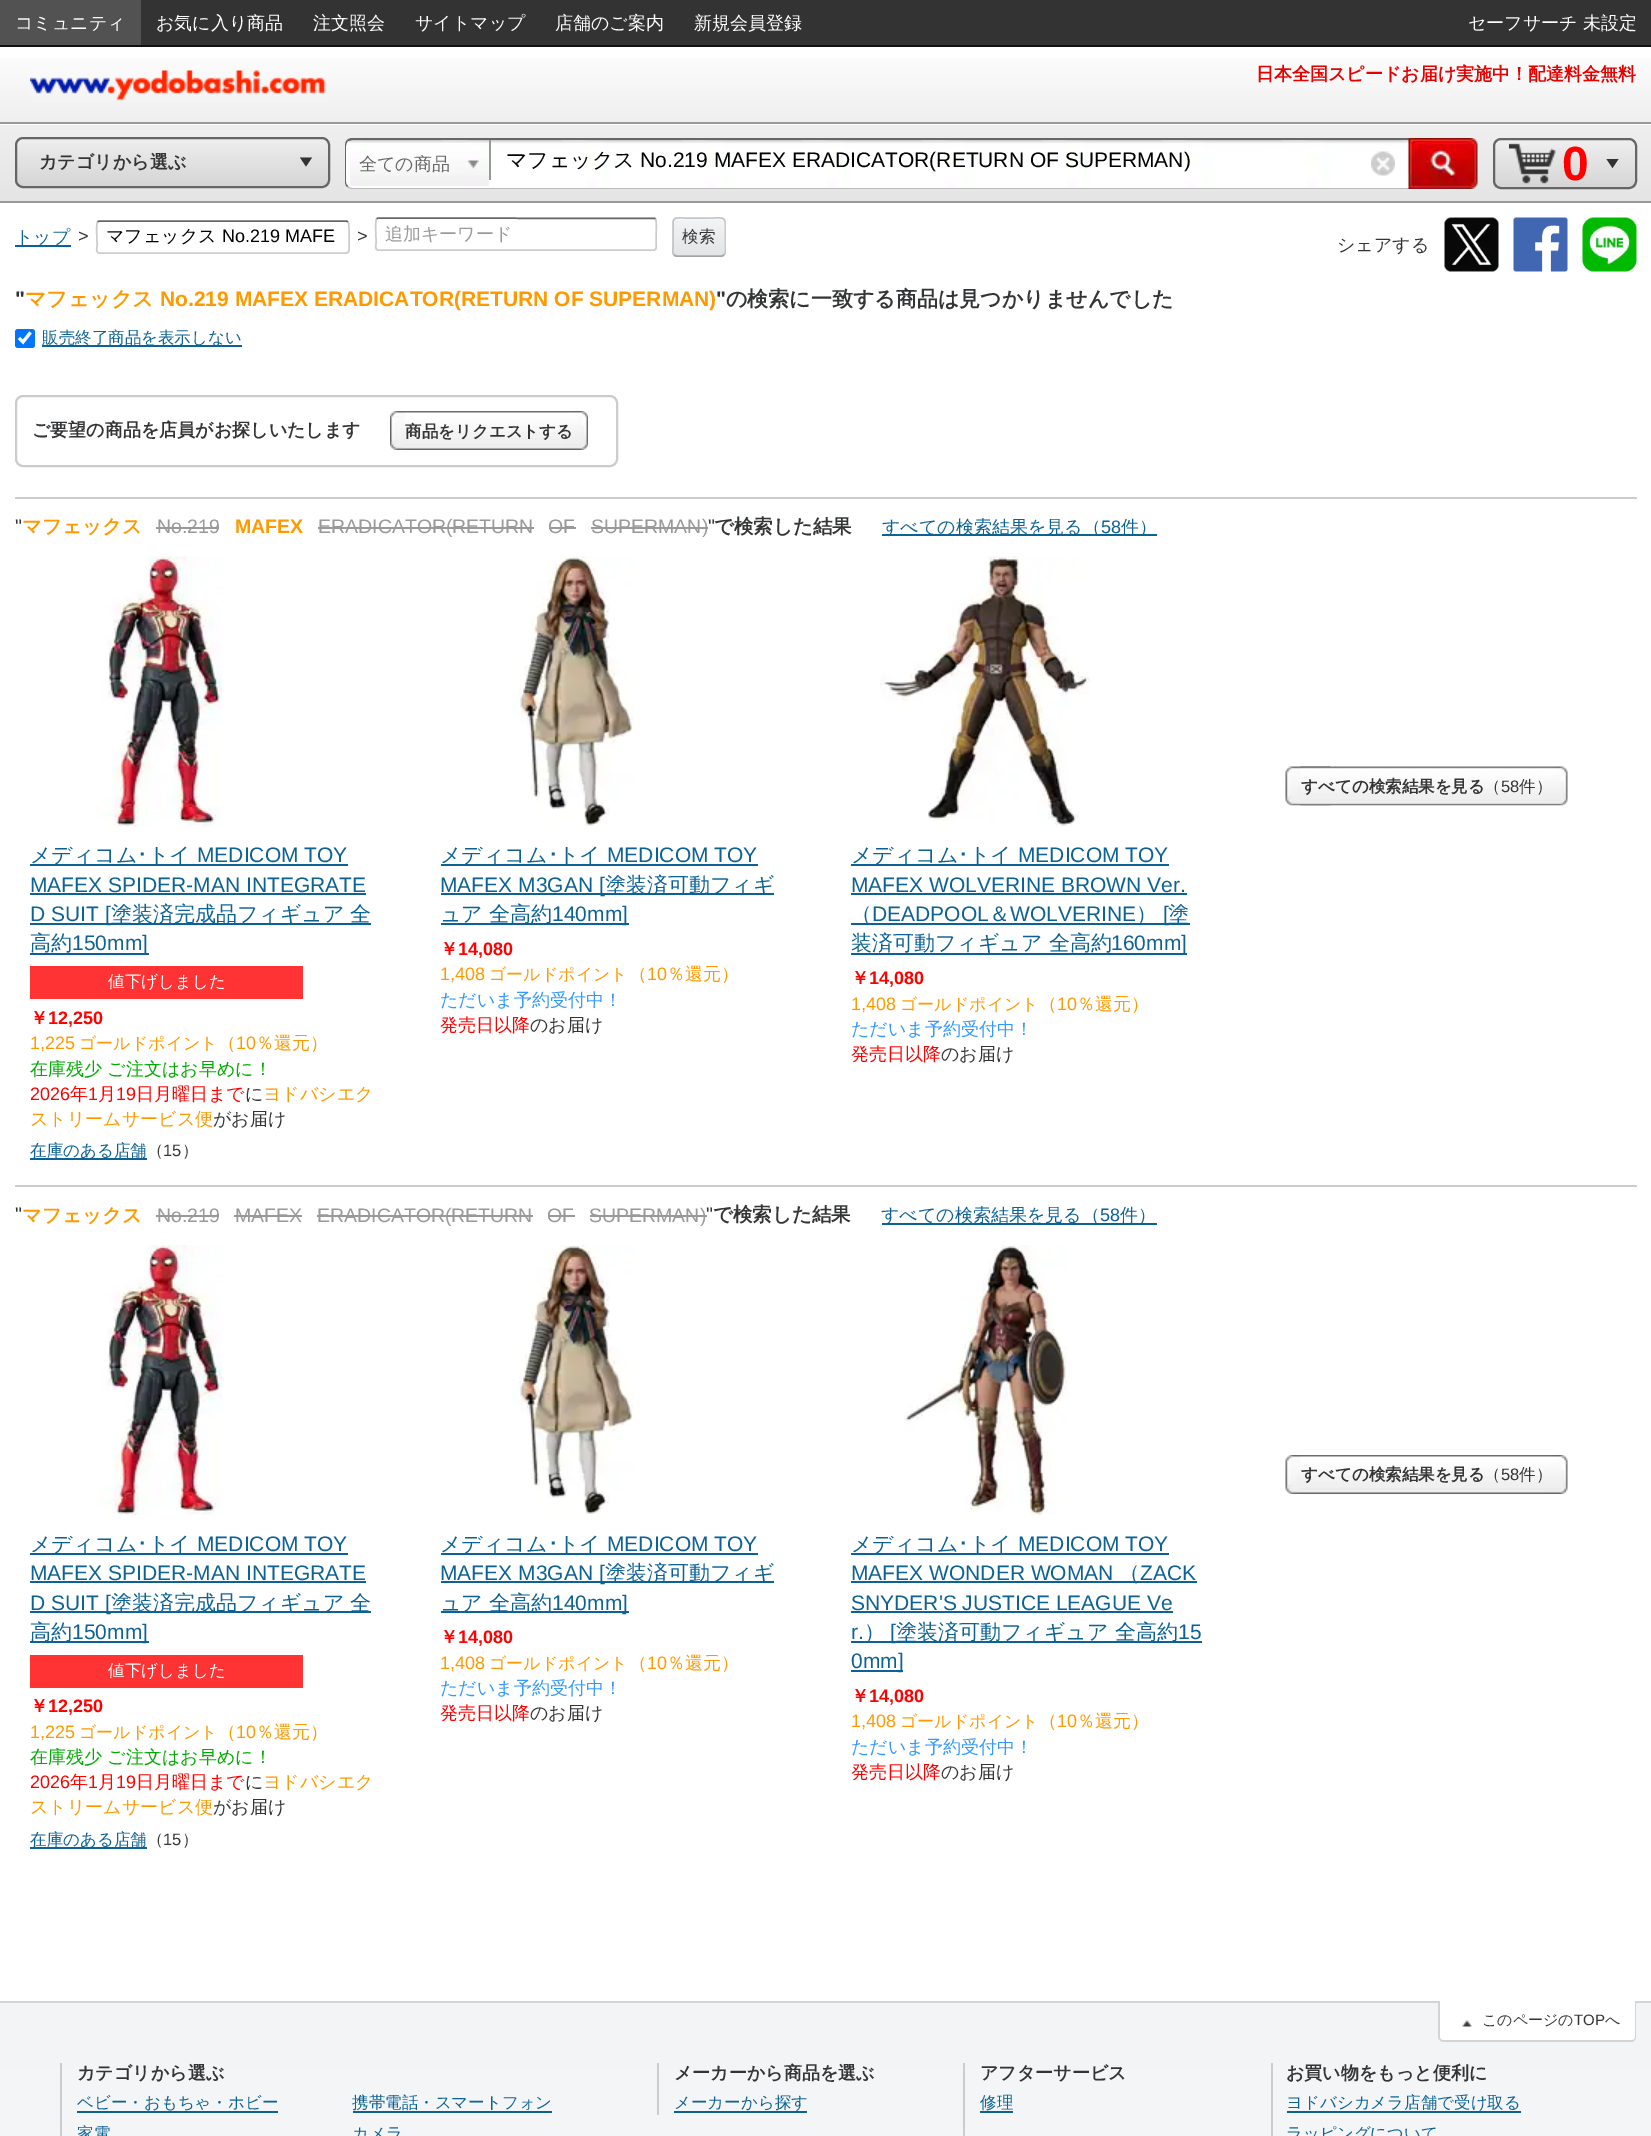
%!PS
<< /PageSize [1651 2136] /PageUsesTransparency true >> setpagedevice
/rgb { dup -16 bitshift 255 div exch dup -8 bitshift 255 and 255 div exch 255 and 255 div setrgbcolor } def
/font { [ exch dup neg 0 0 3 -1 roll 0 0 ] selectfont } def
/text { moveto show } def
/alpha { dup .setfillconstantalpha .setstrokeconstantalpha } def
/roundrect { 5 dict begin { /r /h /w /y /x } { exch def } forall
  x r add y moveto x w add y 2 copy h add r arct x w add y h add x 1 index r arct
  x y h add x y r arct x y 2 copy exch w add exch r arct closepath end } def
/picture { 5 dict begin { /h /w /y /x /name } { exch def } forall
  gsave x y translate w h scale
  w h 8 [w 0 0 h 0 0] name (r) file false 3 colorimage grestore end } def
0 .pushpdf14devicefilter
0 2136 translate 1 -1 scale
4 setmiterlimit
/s1 { /WenQuanYiZenHei-Medium 18 font 16#FFFFFF rgb } def
/s2 { /WenQuanYiZenHei-Bold 18 font 16#E60000 rgb } def
/s3 { /WenQuanYiZenHei-Bold 18 font 16#333435 rgb } def
/s4 { /WenQuanYiZenHei-Medium 18 font 16#666666 rgb } def
/s5 { /WenQuanYiZenHei-Medium 21 font 16#000000 rgb } def
/s6 { /LiberationSans-Regular 21 font 16#000000 rgb } def
/s7 { /LiberationSans-Bold 48 font 16#FF0000 rgb } def
/s8 { /WenQuanYiZenHei-Medium 18 font 16#333435 rgb } def
/s9 { /WenQuanYiZenHei-Medium 18 font 16#0D6295 rgb } def
/s10 { /LiberationSans-Regular 18 font 16#333435 rgb } def
/s11 { /WenQuanYiZenHei-Medium 18 font 16#000000 rgb } def
/s12 { /LiberationSans-Regular 18 font 16#000000 rgb } def
/s13 { /WenQuanYiZenHei-Medium 18 font 16#999999 rgb } def
/s14 { /WenQuanYiZenHei-Medium 16.5 font 16#333435 rgb } def
/s15 { /LiberationSans-Bold 21 font 16#333435 rgb } def
/s16 { /WenQuanYiZenHei-Bold 21 font 16#FF9900 rgb } def
/s17 { /LiberationSans-Bold 21 font 16#FF9900 rgb } def
/s18 { /WenQuanYiZenHei-Bold 21 font 16#333435 rgb } def
/s19 { /WenQuanYiZenHei-Medium 16.5 font 16#0D6295 rgb } def
/s20 { /WenQuanYiZenHei-Bold 16.5 font 16#333435 rgb } def
/s21 { /LiberationSans-Regular 19.5 font 16#333435 rgb } def
/s22 { /WenQuanYiZenHei-Bold 19.5 font 16#FF9900 rgb } def
/s23 { /LiberationSans-Regular 19.5 font 16#999999 rgb } def
/s24 { /LiberationSans-Bold 19.5 font 16#FF9900 rgb } def
/s25 { /WenQuanYiZenHei-Bold 19.5 font 16#333435 rgb } def
/s26 { /LiberationSans-Regular 18 font 16#0D6295 rgb } def
/s27 { /LiberationSans-Regular 16.5 font 16#333435 rgb } def
/s28 { /WenQuanYiZenHei-Medium 21 font 16#0D6295 rgb } def
/s29 { /IPAPGothic-Regular 21 font 16#0D6295 rgb } def
/s30 { /LiberationSans-Regular 21 font 16#0D6295 rgb } def
/s31 { /WenQuanYiZenHei-Medium 16.5 font 16#FFFFFF rgb } def
/s32 { /WenQuanYiZenHei-Bold 18 font 16#FF0000 rgb } def
/s33 { /LiberationSans-Bold 18 font 16#FF0000 rgb } def
/s34 { /LiberationSans-Regular 18 font 16#FF9900 rgb } def
/s35 { /WenQuanYiZenHei-Medium 17 font 16#FF9900 rgb } def
/s36 { /WenQuanYiZenHei-Medium 18 font 16#FF9900 rgb } def
/s37 { /WenQuanYiZenHei-Medium 18 font 16#00AA00 rgb } def
/s38 { /LiberationSans-Regular 18 font 16#FF0000 rgb } def
/s39 { /WenQuanYiZenHei-Medium 18 font 16#FF0000 rgb } def
/s40 { /WenQuanYiZenHei-Medium 18 font 16#3399FF rgb } def
/s41 { /WenQuanYiZenHei-Medium 15 font 16#333435 rgb } def
/s42 { /LiberationSans-Regular 15 font 16#333435 rgb } def
16#FFFFFF rgb
0 0 1651 2136 rectfill
16#333333 rgb
141 0 1510 45 rectfill
16#111111 rgb
0 45 1651 2 rectfill
16#525252 rgb
0 0 141 45 rectfill
s1
(コミュニティ) 15 29 text
(お気に入り商品) 156 29 text
(注文照会) 313 29 text
(サイトマップ) 415 29 text
(店舗のご案内) 555 29 text
(新規会員登録) 694 29 text
(セーフサーチ 未設定) 1468 29 text
gsave 0 58 moveto 1651 58 lineto 1651 122 lineto 0 122 lineto closepath clip newpath
<< /ShadingType 2 /ColorSpace /DeviceRGB /Coords [826 46 826 122] /Extend [true true] /Function << /FunctionType 2 /Domain [0 1] /C0 [1 1 1] /C1 [0.937 0.937 0.937] /N 1 >> >> shfill grestore
16#999999 rgb
0 122 1651 2 rectfill
(pic1.raw) 30 70 296 31 picture
s2
(日本全国スピードお届け実施中！配達料金無料) 1256 80 text
gsave 0 125 moveto 1651 125 lineto 1651 201 lineto 0 201 lineto closepath clip newpath
<< /ShadingType 2 /ColorSpace /DeviceRGB /Coords [826 124 826 201] /Extend [true true] /Function << /FunctionType 2 /Domain [0 1] /C0 [0.937 0.937 0.937] /C1 [0.898 0.898 0.898] /N 1 >> >> shfill grestore
16#999999 rgb
0 201 1651 2 rectfill
gsave
15 137 315 51 8 roundrect clip newpath
gsave 15 138 moveto 330 138 lineto 330 186 lineto 15 186 lineto closepath clip newpath
<< /ShadingType 2 /ColorSpace /DeviceRGB /Coords [173 138 173 186] /Extend [true true] /Function << /FunctionType 2 /Domain [0 1] /C0 [0.937 0.937 0.937] /C1 [0.835 0.835 0.835] /N 1 >> >> shfill grestore
grestore
16#656565 rgb
2 setlinewidth
16 138 313 49 7 roundrect stroke
s3
(カテゴリから選ぶ) 39 168 text
16#333333 rgb
300 157.5 moveto 312 157.5 lineto 306 166.5 lineto closepath fill
(pic4.raw) 345 139 1125 50 picture
(pic2.raw) 350 143 139 43 picture
(pic3.raw) 467 160 12 9 picture
s4
(全ての商品) 359 170 text
352 138 moveto 350 138 348 139 347 140 curveto 348 141 lineto 352 140 lineto 1468 140 lineto 1470 138 lineto closepath fill
16#BBBBBB rgb
1470 189 moveto 1468 187 lineto 1468 188 lineto 352 188 lineto 350 188 349 187 348 186 curveto 347 187 lineto 348 188 350 189 352 189 curveto closepath fill
16#666666 rgb
345 146 moveto 345 182 lineto 345 184 346 186 347 187 curveto 348 186 lineto 347 185 346 184 346 182 curveto 346 146 lineto 346 144 347 142 348 141 curveto 347 140 lineto 346 141 345 143 345 146 curveto closepath fill
16#999999 rgb
489 140 2 40 rectfill
s5
(マフェックス) 506 167 text
s6
(No.219 MAFEX ERADICATOR\(RETURN OF SUPERMAN\)) 640 167 text
(pic5.raw) 1371 151 24 25 picture
(pic6.raw) 1408 138 70 51 picture
gsave
1493 138 144 51 8 roundrect clip newpath
gsave 1493 140 moveto 1637 140 lineto 1637 188 lineto 1493 188 lineto closepath clip newpath
<< /ShadingType 2 /ColorSpace /DeviceRGB /Coords [1565 140 1565 188] /Extend [true true] /Function << /FunctionType 2 /Domain [0 1] /C0 [0.937 0.937 0.937] /C1 [0.835 0.835 0.835] /N 1 >> >> shfill grestore
grestore
16#656565 rgb
1494 139 142 49 7 roundrect stroke
(pic7.raw) 1509 143 47 41 picture
s7
(0) 1562 180 text
16#333333 rgb
1606.5 159 moveto 1618.5 159 lineto 1612.5 168 lineto closepath fill
s8
(シェアする) 1337 251 text
(pic8.raw) 1444 217 55 55 picture
(pic9.raw) 1513 217 55 55 picture
(pic10.raw) 1582 217 55 55 picture
16#0D6295 rgb
15 245 56 2 rectfill
(トップ) 15 243 text
s10
(>) 78 242 text
16#666666 rgb
1.5 setlinewidth
97.5 222 moveto 99 221 lineto 346.5 221 lineto 348 222 lineto stroke
16#CCCCCC rgb
348 222 moveto 349.5 223.5 349 238.5 349 241.5 curveto 349 246 lineto 349 247.5 350 252.5 346.5 253 curveto 99 253 lineto 95.5 252.5 97 247.5 97 246 curveto 97 241.5 lineto 97 238.5 96 223.5 97.5 222 curveto stroke
s11
(マフェックス) 106 242 text
s12
(No.219 MAFE) 222 242 text
s10
(>) 357 242 text
16#666666 rgb
376.5 219 moveto 378 218 lineto 655 218.5 lineto 655.5 219 lineto stroke
16#CCCCCC rgb
655.5 219 moveto 657 220.5 656 235.5 656 238.5 curveto 656 243 lineto 656 244.5 657.5 249.5 654 250 curveto 378 250 lineto 374.5 249.5 376 244.5 376 243 curveto 376 238.5 lineto 376 235.5 375 220.5 376.5 219 curveto stroke
s13
(追加キーワード) 385 240 text
gsave
672 218 54 39 5 roundrect clip newpath
gsave 672 219 moveto 726 219 lineto 726 255 lineto 672 255 lineto closepath clip newpath
<< /ShadingType 2 /ColorSpace /DeviceRGB /Coords [699 219 699 255] /Extend [true true] /Function << /FunctionType 2 /Domain [0 1] /C0 [0.953 0.957 0.961] /C1 [0.89 0.894 0.898] /N 1 >> >> shfill grestore
gsave 672 255 moveto 726 255 lineto 726 257 lineto 672 257 lineto closepath clip newpath
<< /ShadingType 2 /ColorSpace /DeviceRGB /Coords [699 255 699 291] /Extend [true true] /Function << /FunctionType 2 /Domain [0 1] /C0 [0.953 0.957 0.961] /C1 [0.89 0.894 0.898] /N 1 >> >> shfill grestore
grestore
16#A3A4A5 rgb
724 254.5 moveto 723.5 255.5 722.5 256 721.5 256 curveto 676.5 256 lineto 675.5 256 674.5 255.5 674 254.5 curveto stroke
16#C3C4C5 rgb
674 254.5 moveto 672 253 673 249 673 247 curveto 673 227 lineto 673 217 673.5 218 684 218 curveto 714 218 lineto 724.5 218 725 217 725 227 curveto 725 247 lineto 725 249 726 253 724 254.5 curveto stroke
0.3 alpha
16#FFFFFF rgb
678 220 moveto 706 220 lineto 724 220 724 217 724 234 curveto 724 253 lineto 726 250 725 240 725 237 curveto 725 217 727 219 706 219 curveto 686 219 lineto 680 219 674 218 674 225 curveto 674 223 676 220 678 220 curveto closepath fill
1 alpha
s14
(検索) 682 242 text
s15
(") 15 306 text
s16
(マフェックス) 25 306 text
s17
(No.219 MAFEX ERADICATOR\(RETURN OF SUPERMAN\)) 160 306 text
s15
(") 716 306 text
s18
(の検索に一致する商品は見つかりませんでした) 726 306 text
16#0075FF rgb
15 329 20 19 3 roundrect fill
16#FFFFFF rgb
3.1 setlinewidth
19 338 moveto 23 342 lineto 30.5 332.5 lineto stroke
16#0D6295 rgb
42 345 200 2 rectfill
s19
(販売終了商品を表示しない) 42 343 text
16#CCCCCC rgb
2 setlinewidth
16 396 601 70 7 roundrect stroke
s3
(ご要望の商品を店員がお探しいたします) 32 436 text
(pic11.raw) 390 411 15 39 picture
(pic12.raw) 405 411 183 39 picture
s20
(商品をリクエストする) 405 437 text
16#CCCCCC rgb
15 497 1622 2 rectfill
s21
(") 15 533 text
s22
(マフェックス) 22 533 text
s23
(No.219) 157 533 text
156 527 63 2 rectfill
s24
(MAFEX) 235 533 text
s23
(ERADICATOR\(RETURN) 318 533 text
318 527 216 2 rectfill
(OF) 548 533 text
549 527 27 2 rectfill
(SUPERMAN\)) 591 533 text
591 527 117 2 rectfill
s21
(") 708 533 text
s25
(で検索した結果) 714 533 text
16#0D6295 rgb
882 534 275 2 rectfill
s9
(すべての検索結果を見る（) 882 533 text
s26
(58) 1101 533 text
s9
(件）) 1121 533 text
(pic13.raw) 1285 766 46 40 picture
(pic14.raw) 1300 766 268 40 picture
s20
(すべての検索結果を見る) 1301 792 text
s14
(（) 1484 792 text
s27
(58) 1501 792 text
s14
(件）) 1519 792 text
(pic15.raw) 99 556 124 271 picture
16#0D6295 rgb
30 864 318 2 rectfill
s28
(メディコム) 30 862 text
s29
(･) 137 862 text
s28
(トイ) 148 862 text
s30
(MEDICOM TOY) 197 862 text
(MAFEX SPIDER-MAN INTEGRATE) 30 892 text
30 893 336 2 rectfill
30 923 341 2 rectfill
(D SUIT [) 30 921 text
s28
(塗装済完成品フィギュア) 111 921 text
(全) 350 921 text
(高約) 30 950 text
30 953 119 2 rectfill
s30
(150mm]) 72 950 text
16#FF3333 rgb
30 966 273 33 rectfill
s31
(値下げしました) 108 987 text
s32
(￥) 30 1024 text
s33
(12,250) 48 1024 text
s34
(1,225) 30 1049 text
s35
(ゴールドポイント) 79 1049 text
s36
(（) 218 1049 text
s34
(10) 236 1049 text
s36
(％還元）) 256 1049 text
s37
(在庫残少 ご注文はお早めに！) 30 1075 text
s38
(2026) 30 1100 text
s39
(年) 70 1100 text
s38
(1) 88 1100 text
s39
(月) 98 1100 text
s38
(19) 116 1100 text
s39
(日月曜日まで) 136 1100 text
s8
(に) 245 1100 text
s36
(ヨドバシエク) 263 1100 text
(ストリームサービス便) 30 1125 text
s8
(がお届け) 213 1125 text
16#0D6295 rgb
30 1158 117 2 rectfill
s19
(在庫のある店舗) 30 1156 text
s14
(（) 147 1156 text
s27
(15) 163 1156 text
s14
(）) 182 1156 text
(pic16.raw) 512 556 122 271 picture
16#0D6295 rgb
441 864 317 2 rectfill
s28
(メディコム) 440 862 text
s29
(･) 548 862 text
s28
(トイ) 558 862 text
s30
(MEDICOM TOY) 607 862 text
441 893 333 2 rectfill
(MAFEX M3GAN [) 440 892 text
s28
(塗装済可動フィギ) 605 892 text
441 923 188 2 rectfill
(ュア 全高約) 440 921 text
s30
(140mm]) 552 921 text
s32
(￥) 440 955 text
s33
(14,080) 458 955 text
s34
(1,408) 440 980 text
s35
(ゴールドポイント) 489 980 text
s36
(（) 629 980 text
s34
(10) 647 980 text
s36
(％還元）) 667 980 text
s40
(ただいま予約受付中！) 440 1006 text
s39
(発売日以降) 440 1031 text
s8
(のお届け) 530 1031 text
(pic17.raw) 880 556 211 271 picture
16#0D6295 rgb
851 864 318 2 rectfill
s28
(メディコム) 851 862 text
s29
(･) 958 862 text
s28
(トイ) 969 862 text
s30
(MEDICOM TOY) 1018 862 text
(MAFEX WOLVERINE BROWN Ver.) 851 892 text
851 893 336 2 rectfill
851 923 339 2 rectfill
s28
(（) 851 921 text
s30
(DEADPOOL) 872 921 text
s28
(＆) 989 921 text
s30
(WOLVERINE) 1010 921 text
s28
(）) 1136 921 text
s30
([) 1163 921 text
s28
(塗) 1168 921 text
(装済可動フィギュア 全高約) 851 950 text
851 953 336 2 rectfill
s30
(160mm]) 1111 950 text
s32
(￥) 851 984 text
s33
(14,080) 869 984 text
s34
(1,408) 851 1010 text
s35
(ゴールドポイント) 900 1010 text
s36
(（) 1039 1010 text
s34
(10) 1057 1010 text
s36
(％還元）) 1077 1010 text
s40
(ただいま予約受付中！) 851 1035 text
s39
(発売日以降) 851 1060 text
s8
(のお届け) 941 1060 text
16#CCCCCC rgb
15 1185 1622 2 rectfill
s21
(") 15 1221 text
s22
(マフェックス) 22 1222 text
s23
(No.219) 157 1222 text
156 1215 63 2 rectfill
(MAFEX) 235 1222 text
234 1215 68 2 rectfill
(ERADICATOR\(RETURN) 317 1222 text
317 1215 216 2 rectfill
(OF) 547 1222 text
548 1215 27 2 rectfill
(SUPERMAN\)) 589 1222 text
590 1215 117 2 rectfill
s21
(") 706 1221 text
s25
(で検索した結果) 713 1221 text
16#0D6295 rgb
882 1223 275 2 rectfill
s9
(すべての検索結果を見る（) 881 1221 text
s26
(58) 1100 1221 text
s9
(件）) 1120 1221 text
(pic18.raw) 1285 1455 16 39 picture
(pic19.raw) 1300 1455 268 39 picture
s20
(すべての検索結果を見る) 1301 1480 text
s14
(（) 1484 1480 text
s27
(58) 1501 1480 text
s14
(件）) 1519 1480 text
(pic20.raw) 99 1245 124 270 picture
16#0D6295 rgb
30 1553 318 2 rectfill
s28
(メディコム) 30 1551 text
s29
(･) 137 1551 text
s28
(トイ) 148 1551 text
s30
(MEDICOM TOY) 197 1551 text
(MAFEX SPIDER-MAN INTEGRATE) 30 1580 text
30 1581 336 2 rectfill
30 1611 341 2 rectfill
(D SUIT [) 30 1610 text
s28
(塗装済完成品フィギュア) 111 1610 text
(全) 350 1610 text
30 1641 119 2 rectfill
(高約) 30 1639 text
s30
(150mm]) 72 1639 text
16#FF3333 rgb
30 1655 273 33 rectfill
s31
(値下げしました) 108 1676 text
s32
(￥) 30 1712 text
s33
(12,250) 48 1712 text
s34
(1,225) 30 1738 text
s35
(ゴールドポイント) 79 1738 text
s36
(（) 218 1738 text
s34
(10) 236 1738 text
s36
(％還元）) 256 1738 text
s37
(在庫残少 ご注文はお早めに！) 30 1763 text
s38
(2026) 30 1788 text
s39
(年) 70 1788 text
s38
(1) 88 1788 text
s39
(月) 98 1788 text
s38
(19) 116 1788 text
s39
(日月曜日まで) 136 1788 text
s8
(に) 245 1788 text
s36
(ヨドバシエク) 263 1788 text
(ストリームサービス便) 30 1813 text
s8
(がお届け) 213 1813 text
16#0D6295 rgb
30 1847 117 2 rectfill
s19
(在庫のある店舗) 30 1845 text
s14
(（) 147 1845 text
s27
(15) 163 1845 text
s14
(）) 182 1845 text
(pic21.raw) 512 1245 122 270 picture
16#0D6295 rgb
441 1553 317 2 rectfill
s28
(メディコム) 440 1551 text
s29
(･) 548 1551 text
s28
(トイ) 558 1551 text
s30
(MEDICOM TOY) 607 1551 text
441 1581 333 2 rectfill
(MAFEX M3GAN [) 440 1580 text
s28
(塗装済可動フィギ) 605 1580 text
441 1611 188 2 rectfill
(ュア 全高約) 440 1610 text
s30
(140mm]) 552 1610 text
s32
(￥) 440 1643 text
s33
(14,080) 458 1643 text
s34
(1,408) 440 1669 text
s35
(ゴールドポイント) 489 1669 text
s36
(（) 629 1669 text
s34
(10) 647 1669 text
s36
(％還元）) 667 1669 text
s40
(ただいま予約受付中！) 440 1694 text
s39
(発売日以降) 440 1719 text
s8
(のお届け) 530 1719 text
(pic22.raw) 904 1245 163 270 picture
16#0D6295 rgb
851 1553 318 2 rectfill
s28
(メディコム) 851 1551 text
s29
(･) 958 1551 text
s28
(トイ) 969 1551 text
s30
(MEDICOM TOY) 1018 1551 text
(MAFEX WONDER WOMAN) 851 1580 text
851 1581 346 2 rectfill
s28
(（) 1119 1580 text
s30
(ZACK) 1140 1580 text
(SNYDER'S JUSTICE LEAGUE Ve) 851 1610 text
851 1611 322 2 rectfill
(r.) 851 1639 text
851 1641 351 2 rectfill
s28
(）) 864 1639 text
s30
([) 890 1639 text
s28
(塗装済可動フィギュア 全高約) 896 1639 text
s30
(15) 1178 1639 text
851 1670 52 2 rectfill
(0mm]) 851 1668 text
s32
(￥) 851 1702 text
s33
(14,080) 869 1702 text
s34
(1,408) 851 1727 text
s35
(ゴールドポイント) 900 1727 text
s36
(（) 1039 1727 text
s34
(10) 1057 1727 text
s36
(％還元）) 1077 1727 text
s40
(ただいま予約受付中！) 851 1753 text
s39
(発売日以降) 851 1778 text
s8
(のお届け) 941 1778 text
gsave 0 2003 moveto 1651 2003 lineto 1651 2136 lineto 0 2136 lineto closepath clip newpath
<< /ShadingType 2 /ColorSpace /DeviceRGB /Coords [826 2003 826 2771] /Extend [true true] /Function << /FunctionType 2 /Domain [0 1] /C0 [0.953 0.957 0.961] /C1 [1 1 1] /N 1 >> >> shfill grestore
16#D3D4D5 rgb
0 2001 1651 2 rectfill
16#FFFFFF rgb
1440 2001 moveto 1635 2001 lineto 1635 2037 lineto 1635 2038.5 1633.5 2040 1632 2040 curveto 1443 2040 lineto 1441.5 2040 1440 2038.5 1440 2037 curveto closepath fill
16#D3D4D5 rgb
1438 2001 moveto 1636 2001 lineto 1636 2037 lineto 1636 2039 1634 2042 1632 2042 curveto 1443 2042 lineto 1441 2042 1438 2039 1438 2037 curveto closepath 1440 2001 moveto 1635 2001 lineto 1635 2037 lineto 1635 2039 1634 2040 1632 2040 curveto 1443 2040 lineto 1441 2040 1440 2039 1440 2037 curveto closepath eofill
(pic23.raw) 1462 2020 10 7 picture
s41
(このページの) 1482 2025 text
s42
(TOP) 1574 2025 text
s41
(へ) 1605 2025 text
16#CCCCCC rgb
60 2063 2 73 rectfill
s3
(カテゴリから選ぶ) 77 2079 text
s19
(ベビー・おもちゃ・ホビー) 77 2108 text
77 2111 201 2 rectfill
(家電) 77 2139 text
(携帯電話・スマートフォン) 352 2108 text
353 2111 199 2 rectfill
(カメラ) 352 2139 text
16#CCCCCC rgb
657 2063 2 52 rectfill
s3
(メーカーから商品を選ぶ) 674 2079 text
16#0D6295 rgb
674 2111 133 2 rectfill
s19
(メーカーから探す) 674 2108 text
16#CCCCCC rgb
963 2063 2 73 rectfill
s3
(アフターサービス) 980 2079 text
s19
(修理) 980 2108 text
980 2111 33 2 rectfill
16#CCCCCC rgb
1271 2063 2 73 rectfill
s3
(お買い物をもっと便利に) 1286 2079 text
s19
(ヨドバシカメラ店舗で受け取る) 1286 2108 text
1287 2111 234 2 rectfill
(ラッピングについて) 1286 2139 text
.poppdf14devicefilter showpage
